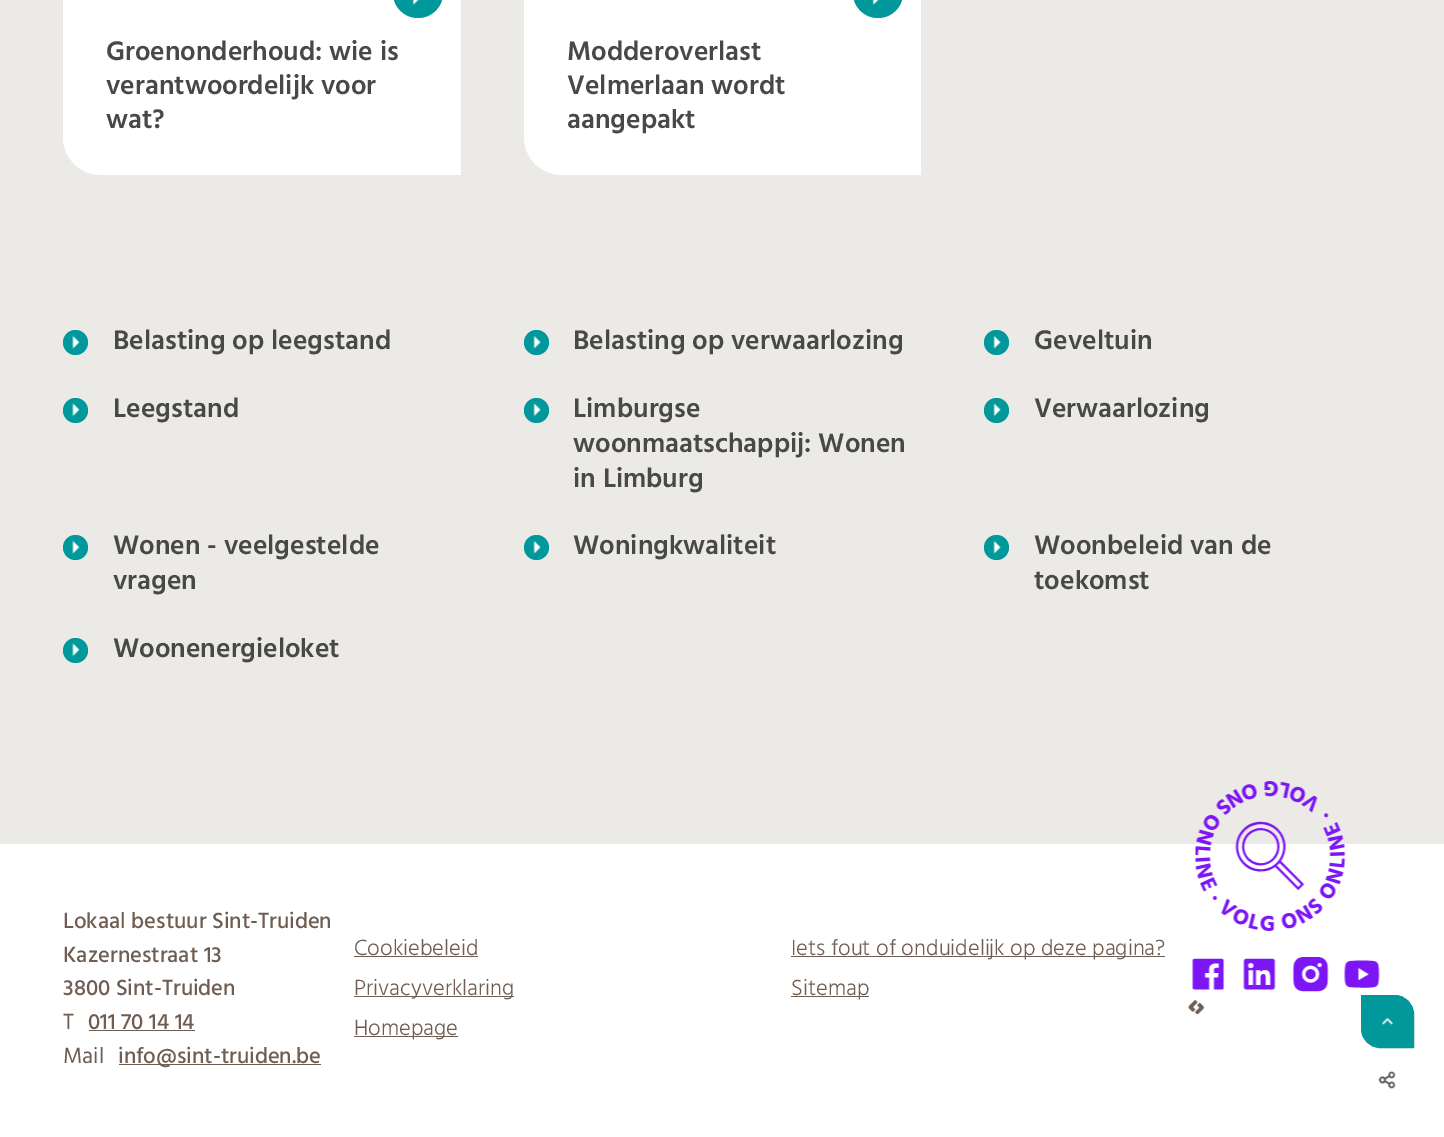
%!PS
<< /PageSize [1444 1137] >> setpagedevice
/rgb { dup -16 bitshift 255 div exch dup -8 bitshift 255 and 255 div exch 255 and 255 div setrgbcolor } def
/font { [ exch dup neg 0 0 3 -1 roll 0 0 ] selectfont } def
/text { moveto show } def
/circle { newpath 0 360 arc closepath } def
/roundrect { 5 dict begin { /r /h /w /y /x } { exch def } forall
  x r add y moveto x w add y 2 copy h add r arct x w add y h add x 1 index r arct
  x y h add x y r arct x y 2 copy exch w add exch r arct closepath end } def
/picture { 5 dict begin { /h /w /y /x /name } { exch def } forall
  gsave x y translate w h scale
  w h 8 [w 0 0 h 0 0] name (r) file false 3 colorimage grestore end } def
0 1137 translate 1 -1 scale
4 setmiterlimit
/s1 { /Hind-SemiBold 27.5 font 16#484848 rgb } def
/s2 { /Hind-Medium 22.5 font 16#6F5D51 rgb } def
/s3 { /Hind-Regular 22.5 font 16#6F5D51 rgb } def
/s4 { /Hind-Light 22.5 font 16#6F5D51 rgb } def
16#ECEAE7 rgb
0 0 1444 1137 rectfill
16#FFFFFF rgb
63 -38 moveto 423 -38 lineto 444 -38 461 -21 461 0 curveto 461 175 lineto 101 175 lineto 80 175 63 158 63 137 curveto closepath fill
16#00989A rgb
393 -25 50 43 25 roundrect fill
(pic1.raw) 412 0 7 5 picture
s1
(Groenonderhoud: wie is) 106 60 text
(verantwoordelijk voor) 106 94 text
(wat?) 106 128 text
16#FFFFFF rgb
524 -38 moveto 883 -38 lineto 904 -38 921 -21 921 0 curveto 921 175 lineto 562 175 lineto 541 175 524 158 524 137 curveto closepath fill
16#00989A rgb
853 -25 50 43 25 roundrect fill
(pic1.raw) 872 0 7 5 picture
s1
(Modderoverlast) 567 60 text
(Velmerlaan wordt) 567 94 text
(aangepakt) 567 128 text
16#00989A rgb
75.5 342.5 12.5 circle fill
(pic2.raw) 72 335 8 14 picture
s1
(Belasting op leegstand) 113 349 text
16#00989A rgb
536.5 342.5 12.5 circle fill
(pic3.raw) 533 335 8 14 picture
s1
(Belasting op verwaarlozing) 573 349 text
16#00989A rgb
996.5 342.5 12.5 circle fill
(pic3.raw) 993 335 8 14 picture
s1
(Geveltuin) 1034 349 text
16#00989A rgb
75.5 410.5 12.5 circle fill
(pic4.raw) 72 403 8 14 picture
s1
(Leegstand) 113 417 text
16#00989A rgb
536.5 410.5 12.5 circle fill
(pic5.raw) 533 403 8 14 picture
s1
(Limburgse) 573 417 text
(woonmaatschappij: Wonen) 573 452 text
(in Limburg) 573 487 text
16#00989A rgb
996.5 410.5 12.5 circle fill
(pic5.raw) 993 403 8 14 picture
s1
(Verwaarlozing) 1034 417 text
16#00989A rgb
75.5 547.5 12.5 circle fill
(pic2.raw) 72 540 8 14 picture
s1
(Wonen - veelgestelde) 113 554 text
(vragen) 113 589 text
16#00989A rgb
536.5 547.5 12.5 circle fill
(pic3.raw) 533 540 8 14 picture
s1
(Woningkwaliteit) 573 554 text
16#00989A rgb
996.5 547.5 12.5 circle fill
(pic3.raw) 993 540 8 14 picture
s1
(Woonbeleid van de) 1034 554 text
(toekomst) 1034 589 text
16#00989A rgb
75.5 650.5 12.5 circle fill
(pic4.raw) 72 643 8 14 picture
s1
(Woonenergieloket) 113 657 text
16#FFFFFF rgb
0 844 1444 293 rectfill
s2
(Lokaal bestuur Sint-Truiden) 63 928 text
(Kazernestraat 13) 63 962 text
(3800 Sint-Truiden) 63 995 text
s3
(T) 63 1029 text
s2
(011 70 14 14) 88 1029 text
89 1030 106 1 rectfill
s3
(Mail) 63 1063 text
119 1064 202 1 rectfill
s2
(info@sint-truiden.be) 118 1063 text
s4
(Cookiebeleid) 354 955 text
354 956 124 1 rectfill
791 956 374 1 rectfill
(Iets fout of onduidelijk op deze pagina?) 791 955 text
354 996 160 1 rectfill
(Privacyverklaring) 354 995 text
791 996 78 1 rectfill
(Sitemap) 791 995 text
354 1036 104 1 rectfill
(Homepage) 354 1035 text
(pic6.raw) 1195 781 151 150 picture
(pic7.raw) 1192 958 33 32 picture
(pic8.raw) 1243 958 33 32 picture
(pic9.raw) 1292 957 37 35 picture
(pic10.raw) 1344 960 36 28 picture
(pic11.raw) 1188 1000 17 15 picture
16#00989A rgb
1361.5 995.5 moveto 1395 995.5 lineto 1405 995.5 1413.5 1004 1413.5 1014 curveto 1413.5 1047.5 lineto 1380 1047.5 lineto 1370 1047.5 1361.5 1039 1361.5 1029 curveto closepath gsave fill grestore
stroke
(pic12.raw) 1382 1017 11 8 picture
(pic13.raw) 1378 1071 18 18 picture
showpage
